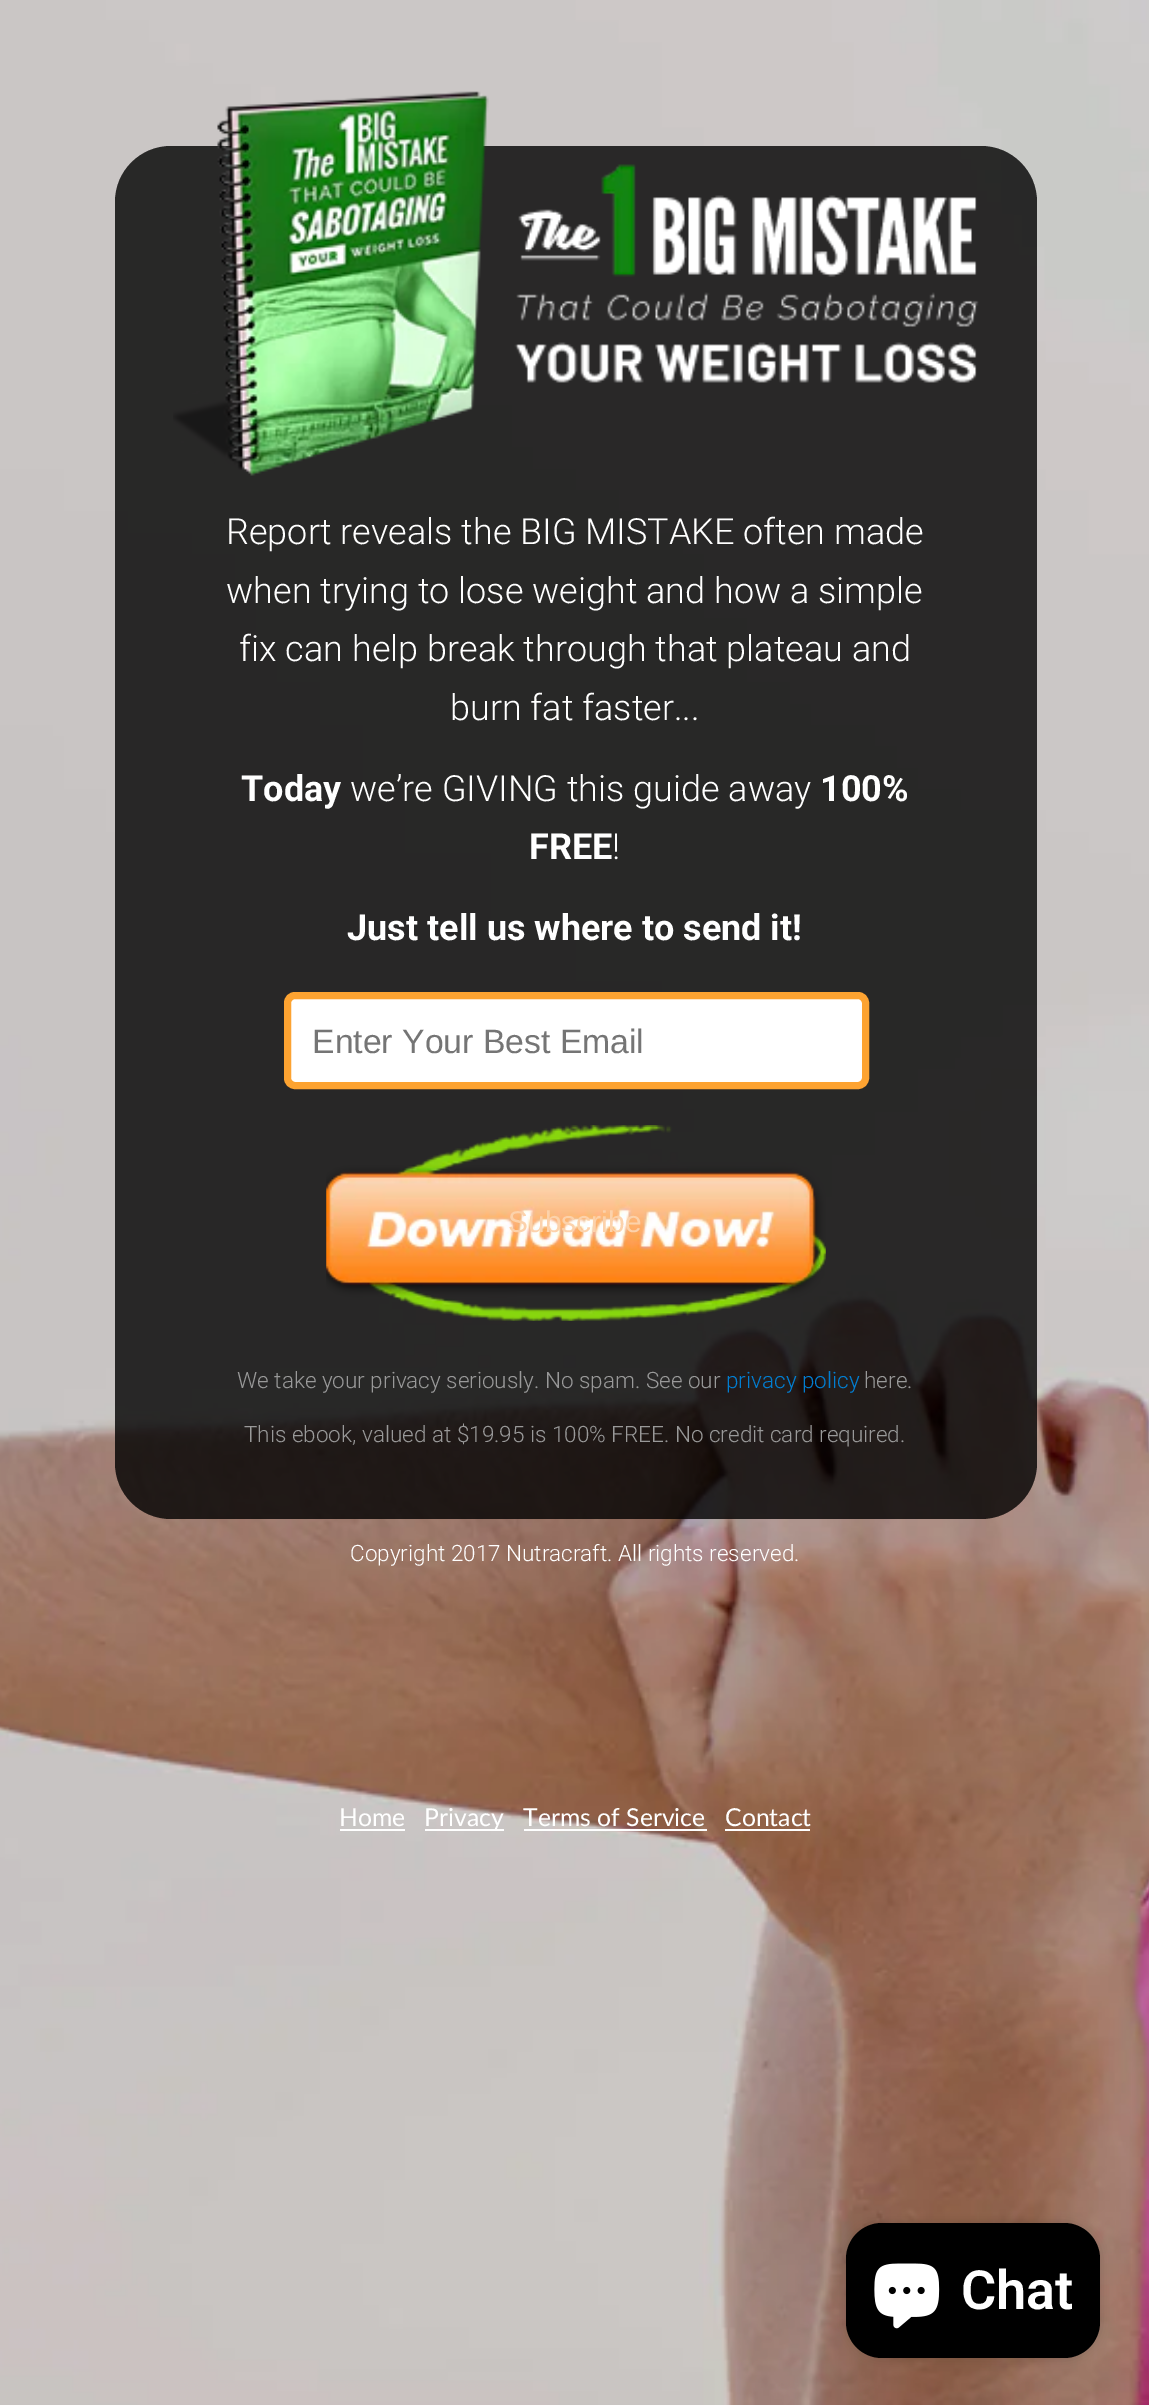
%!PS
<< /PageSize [1149 2405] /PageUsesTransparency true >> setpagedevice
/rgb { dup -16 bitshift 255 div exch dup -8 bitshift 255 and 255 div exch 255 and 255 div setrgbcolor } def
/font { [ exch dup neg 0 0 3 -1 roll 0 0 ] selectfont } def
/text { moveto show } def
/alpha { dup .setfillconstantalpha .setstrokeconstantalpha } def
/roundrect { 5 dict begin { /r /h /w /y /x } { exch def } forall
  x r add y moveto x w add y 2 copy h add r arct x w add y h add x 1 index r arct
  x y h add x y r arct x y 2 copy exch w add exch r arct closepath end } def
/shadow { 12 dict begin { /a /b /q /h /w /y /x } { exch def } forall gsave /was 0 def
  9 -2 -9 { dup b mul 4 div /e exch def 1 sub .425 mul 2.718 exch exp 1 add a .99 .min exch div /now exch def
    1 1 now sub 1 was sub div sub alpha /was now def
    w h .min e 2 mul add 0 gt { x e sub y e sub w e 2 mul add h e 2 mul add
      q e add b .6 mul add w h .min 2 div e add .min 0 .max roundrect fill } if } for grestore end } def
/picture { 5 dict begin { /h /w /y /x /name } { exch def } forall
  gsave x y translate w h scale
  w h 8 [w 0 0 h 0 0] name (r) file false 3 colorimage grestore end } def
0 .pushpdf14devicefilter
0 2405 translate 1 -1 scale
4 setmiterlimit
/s1 { /Roboto-Light 36 font 16#FFFFFF rgb } def
/s2 { /Roboto-Bold 36 font 16#FFFFFF rgb } def
/s3 { /LiberationSans-Regular 33.75 font 16#757575 rgb } def
/s4 { /LiberationSans-Regular 30 font 16#FCD2AB rgb } def
/s5 { /Roboto-Light 22.5 font 16#999999 rgb } def
/s6 { /Roboto-Light 22.5 font 16#017ED2 rgb } def
/s7 { /Roboto-Light 22.5 font 16#FFFFFF rgb } def
/s8 { /Lato-Regular 24.75 font 16#FFFFFF rgb } def
/s9 { /Roboto-SemiBold 54 font 16#FFFFFF rgb } def
16#FFFFFF rgb
0 0 1149 2405 rectfill
(pic1.raw) 0 0 1149 2405 picture
0.8 alpha
16#000000 rgb
115 146 922 1373 56 roundrect fill
1 alpha
(pic2.raw) 173 91 806 385 picture
s1
(Report reveals the BIG MISTAKE often made) 226 544 text
(when trying to lose weight and how a simple) 226 603 text
(fix can help break through that plateau and) 239 661 text
(burn fat faster...) 450 720 text
s2
(Today) 241 801 text
s1
(we’re GIVING this guide away) 350 801 text
s2
(100%) 820 801 text
(FREE) 529 859 text
s1
(!) 612 859 text
s2
(Just tell us where to send it!) 347 940 text
287.5 995.5 578 90 7.5 roundrect gsave fill grestore
16#FDA331 rgb
7 setlinewidth
stroke
s3
(Enter Your Best Email) 312 1053 text
(pic3.raw) 326 1125 500 196 picture
s4
(Subscribe) 508 1232 text
s5
(We take your privacy seriously. No spam. See our) 237 1388 text
s6
(privacy policy) 726 1388 text
s5
(here.) 864 1388 text
(This ebook, valued at $19.95 is 100% FREE. No credit card required.) 244 1442 text
s7
(Copyright 2017 Nutracraft. All rights reserved.) 350 1561 text
s8
(Home) 339 1826 text
340 1829 65 2 rectfill
425 1829 79 2 rectfill
(Privacy) 424 1826 text
(Terms of Service) 523 1826 text
524 1829 183 2 rectfill
(Contact) 725 1826 text
725 1829 85 2 rectfill
16#000000 rgb
846 2223 254 135 36 5.5 0.15 shadow
846 2223 254 135 36 roundrect fill
(pic4.raw) 874 2263 66 66 picture
s9
(Chat) 961 2309 text
.poppdf14devicefilter showpage
